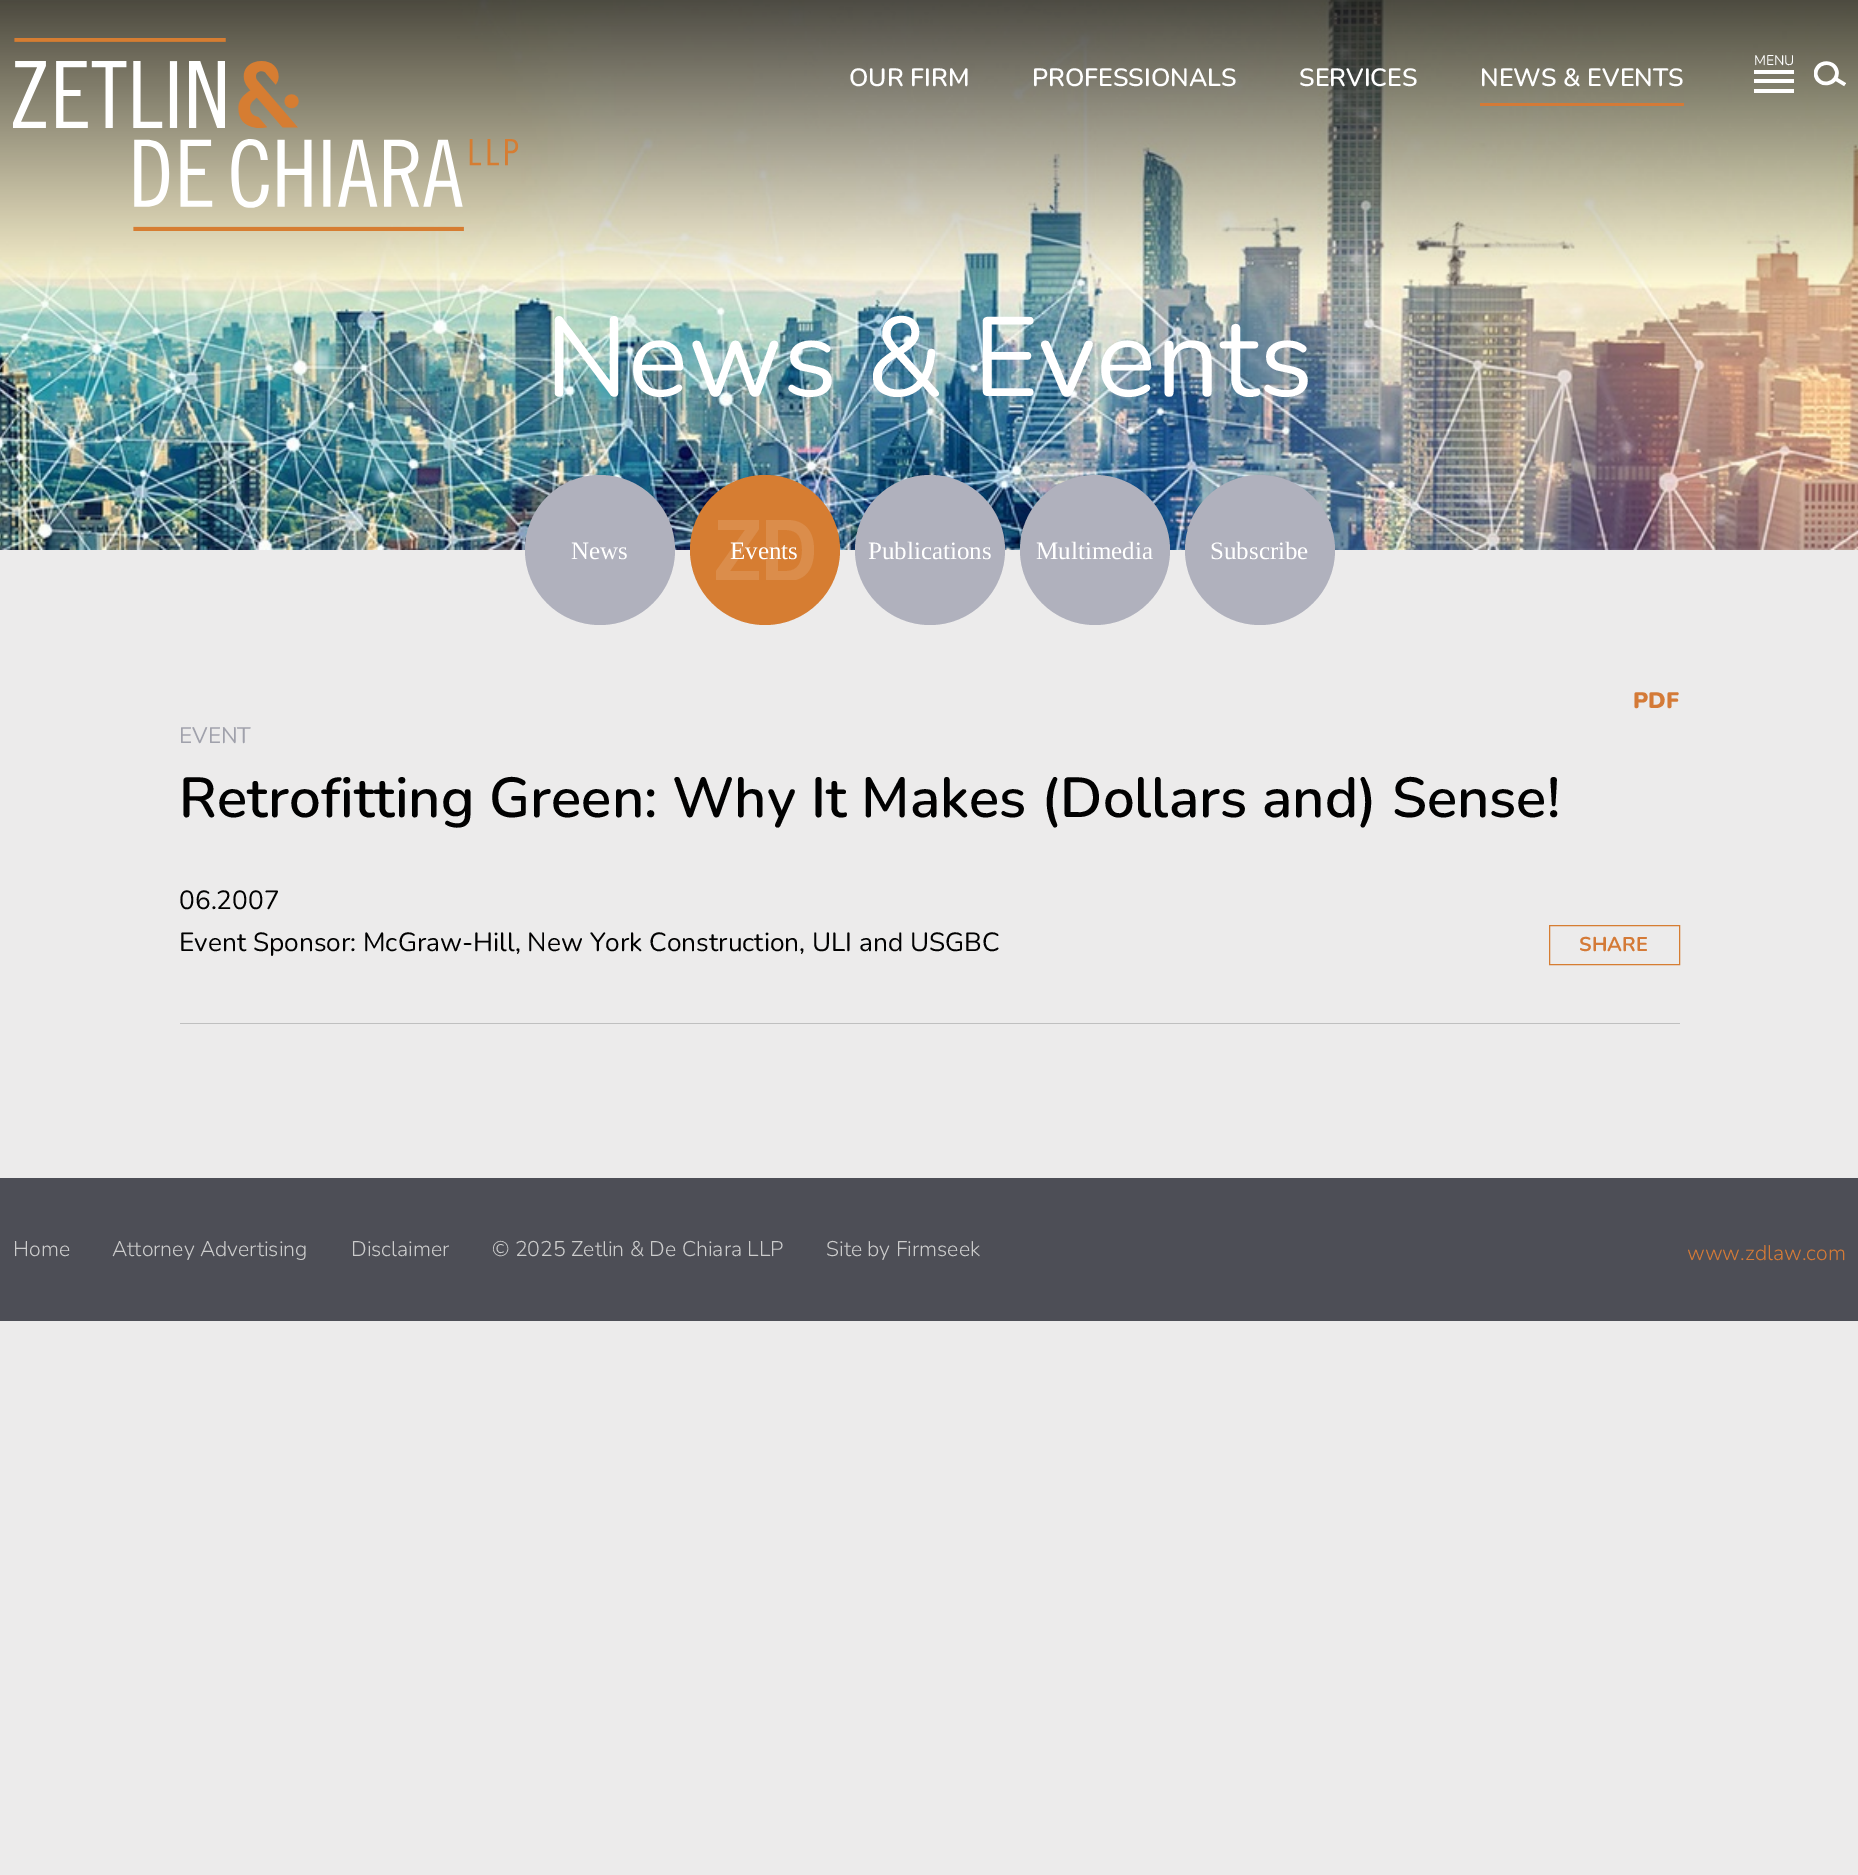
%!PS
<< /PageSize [1858 1875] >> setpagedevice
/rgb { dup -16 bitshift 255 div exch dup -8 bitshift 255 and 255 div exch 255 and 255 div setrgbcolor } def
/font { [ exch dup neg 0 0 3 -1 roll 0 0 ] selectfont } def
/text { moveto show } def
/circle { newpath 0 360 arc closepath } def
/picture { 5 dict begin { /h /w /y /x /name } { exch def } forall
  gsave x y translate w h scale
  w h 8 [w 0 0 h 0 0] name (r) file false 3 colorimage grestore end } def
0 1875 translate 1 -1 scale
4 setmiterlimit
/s1 { /Nunito-SemiBold 25 font 16#FFFFFF rgb } def
/s2 { /Nunito-Regular 14 font 16#FFFFFF rgb } def
/s3 { /Nunito-Regular 112.5 font 16#FFFFFF rgb } def
/s4 { /LiberationSerif-Regular 25 font 16#FFFFFF rgb } def
/s5 { /Nunito-Black 22.5 font 16#D47A37 rgb } def
/s6 { /Nunito-Regular 22.5 font 16#A0A1AB rgb } def
/s7 { /Nunito-SemiBold 56.25 font 16#010101 rgb } def
/s8 { /Nunito-Regular 26.25 font 16#010101 rgb } def
/s9 { /Nunito-Bold 20 font 16#D47A37 rgb } def
/s10 { /Nunito-Light 21.25 font 16#CCCCCC rgb } def
/s11 { /Nunito-Light 21.25 font 16#D47A37 rgb } def
16#ECEBEB rgb
0 0 1858 1875 rectfill
(pic3.raw) 0 0 1858 550 picture
(pic1.raw) 13 38 506 193 picture
s1
(OUR FIRM) 849 86 text
(PROFESSIONALS) 1032 86 text
(SERVICES) 1299 86 text
16#D47A37 rgb
1480 103 204 3 rectfill
s1
(NEWS & EVENTS) 1480 86 text
s2
(MENU) 1754 65 text
1754 89 40 4 rectfill
1754 79 40 4 rectfill
1754 70 40 4 rectfill
(pic2.raw) 1814 61 32 26 picture
s3
(News & Events) 545 396 text
16#B0B1BD rgb
600 550 75 circle fill
s4
(News) 571 559 text
16#D67D32 rgb
765 550 75 circle fill
gsave
716 520 98 60 rectclip
16#DB8D4B rgb
778 530 moveto 786 530 lineto 799 530 802 539 802 550 curveto 802 561 799 571 786 571 curveto 778 571 lineto closepath 766 581 moveto 787 581 lineto 803 581 814 572 814 550 curveto 814 529 803 520 787 520 curveto 766 520 lineto closepath 759 571 moveto 730 571 lineto 759 529 lineto 759 520 lineto 718 520 lineto 718 530 lineto 745 530 lineto 716 571 lineto 716 581 lineto 759 581 lineto closepath fill
grestore
s4
(Events) 730 559 text
16#B0B1BD rgb
930 550 75 circle fill
s4
(Publications) 868 559 text
16#B0B1BD rgb
1095 550 75 circle fill
s4
(Multimedia) 1036 559 text
16#B0B1BD rgb
1260 550 75 circle fill
s4
(Subscribe) 1210 559 text
s5
(PDF) 1633 708 text
s6
(EVENT) 179 743 text
s7
(Retrofitting Green: Why It Makes \(Dollars and\) Sense!) 179 817 text
16#BFBFBF rgb
180 1023 1500 1 rectfill
s8
(06.2007) 179 909 text
(Event Sponsor: McGraw-Hill, New York Construction, ULI and USGBC) 179 951 text
16#D67D32 rgb
1549.5 925.5 130 39 rectstroke
s9
(SHARE) 1579 951 text
16#4D4E56 rgb
0 1178 1858 143 rectfill
s10
(Home) 13 1256 text
(Attorney Advertising) 112 1256 text
(Disclaimer) 351 1256 text
(© 2025 Zetlin & De Chiara LLP) 492 1256 text
(Site by Firmseek) 826 1256 text
s11
(www.zdlaw.com) 1687 1260 text
showpage
